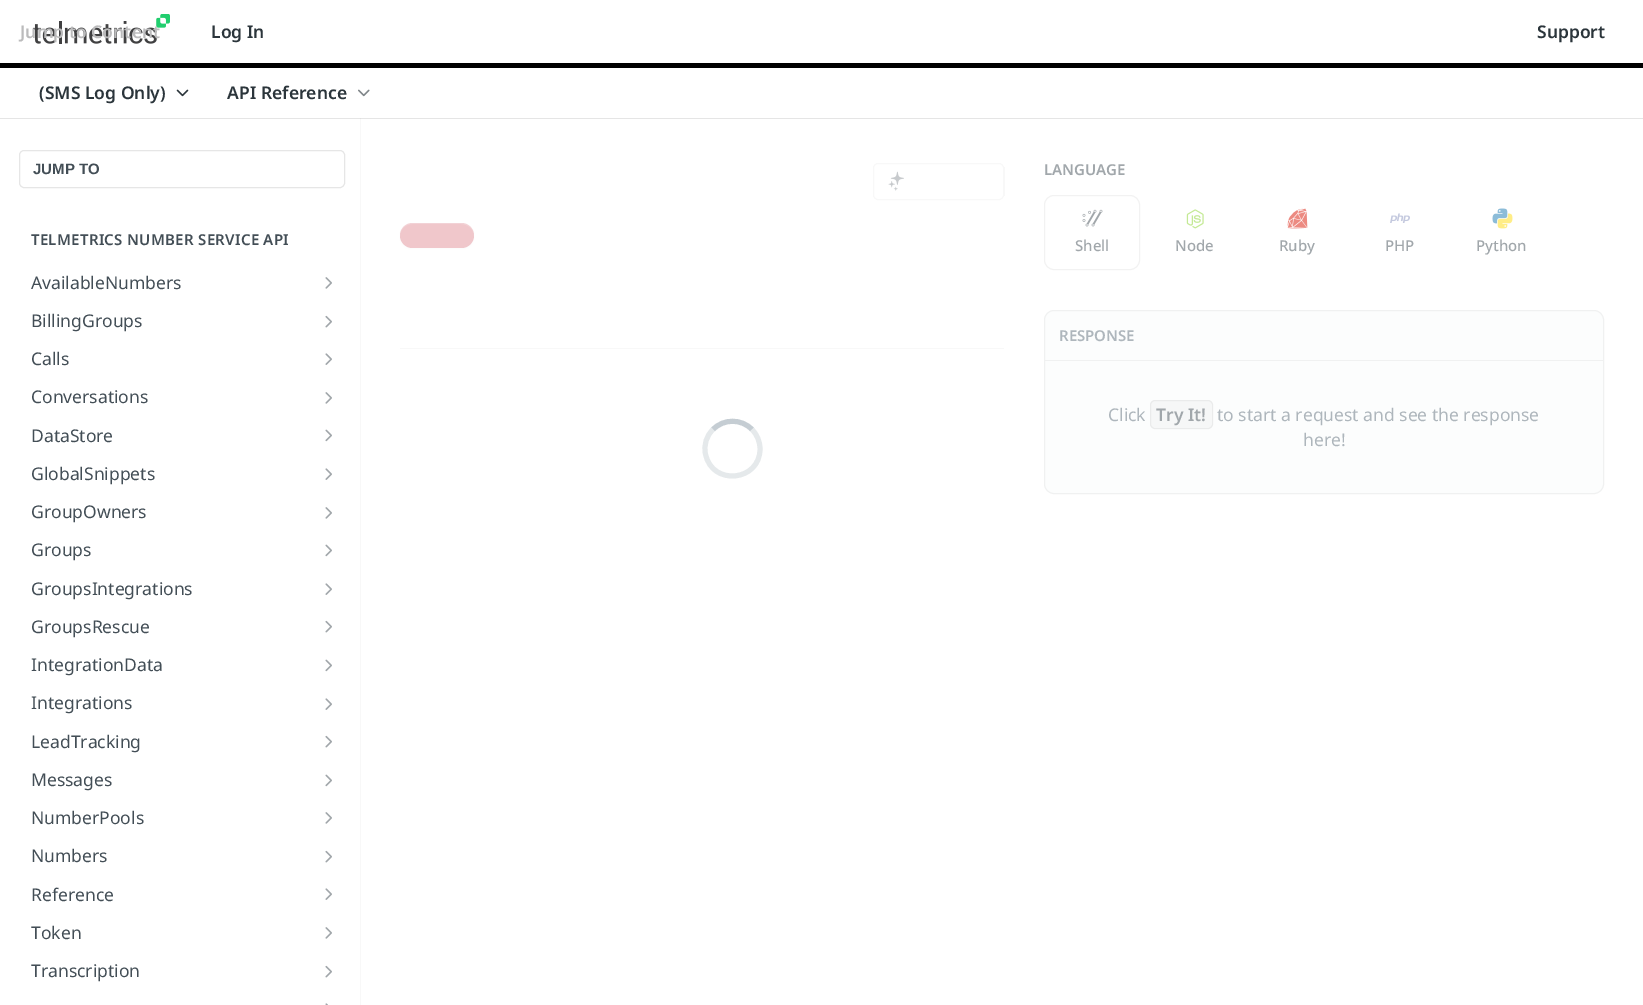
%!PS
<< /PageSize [1643 1005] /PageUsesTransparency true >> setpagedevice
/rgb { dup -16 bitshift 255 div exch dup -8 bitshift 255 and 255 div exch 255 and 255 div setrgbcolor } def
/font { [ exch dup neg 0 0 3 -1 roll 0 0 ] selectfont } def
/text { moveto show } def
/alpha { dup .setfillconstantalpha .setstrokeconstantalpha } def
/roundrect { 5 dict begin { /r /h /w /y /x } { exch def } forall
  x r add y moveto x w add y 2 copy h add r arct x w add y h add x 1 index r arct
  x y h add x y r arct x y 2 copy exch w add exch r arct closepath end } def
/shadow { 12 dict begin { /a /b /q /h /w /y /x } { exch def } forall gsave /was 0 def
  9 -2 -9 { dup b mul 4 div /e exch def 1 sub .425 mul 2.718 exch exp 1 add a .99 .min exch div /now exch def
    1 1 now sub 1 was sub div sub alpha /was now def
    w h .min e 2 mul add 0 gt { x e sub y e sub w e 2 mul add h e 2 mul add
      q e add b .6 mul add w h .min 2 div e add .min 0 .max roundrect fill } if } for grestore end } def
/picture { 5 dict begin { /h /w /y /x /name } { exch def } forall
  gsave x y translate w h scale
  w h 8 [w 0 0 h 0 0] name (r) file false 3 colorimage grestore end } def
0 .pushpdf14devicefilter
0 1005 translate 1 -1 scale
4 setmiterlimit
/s1 { /NotoSans-SemiBold 17.5 font 16#BBBBBC rgb } def
/s2 { /NotoSans-SemiBold 17.5 font 16#2B353B rgb } def
/s3 { /LiberationSans-Bold 15 font 16#434E56 rgb } def
/s4 { /NotoSans-Regular 17.5 font 16#434E56 rgb } def
/s5 { /NotoSans-SemiBold 15 font 16#A1A7AB rgb } def
/s6 { /NotoSans-Medium 15 font 16#A1A7AB rgb } def
/s7 { /NotoSans-SemiBold 15 font 16#AEB6BC rgb } def
/s8 { /NotoSans-Regular 17.5 font 16#AEB6BC rgb } def
/s9 { /NotoSans-SemiBold 17.5 font 16#A1A7AB rgb } def
16#FFFFFF rgb
0 0 1643 1005 rectfill
16#E6E6E6 rgb
360 118 1 887 rectfill
400 348 604 1 rectfill
873.5 163.5 130 36 4.5 roundrect stroke
(pic9.raw) 888 171 16 20 picture
16#000000 rgb
400 224 74 25 12.5 1 0.05 shadow
16#CB4452 rgb
400 223 74 25 12.5 roundrect fill
0.2 alpha
16#FFFFFF rgb
412 224 moveto 461 224 lineto 468 224 474 229 474 236 curveto 474 230 470 224 464 223 curveto 410 223 lineto 404 224 400 230 400 236 curveto 400 229 406 224 412 224 curveto closepath fill
0.7 alpha
360 118 644 887 rectfill
0.1 alpha
16#000000 rgb
0 118 moveto 0 119 lineto 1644 119 lineto 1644 1 lineto 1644 118 lineto closepath fill
1 alpha
0 63 1643 5 rectfill
(pic1.raw) 33 14 137 30 picture
s1
(Jump to Content) 20 38 text
s2
(Log In) 211 38 text
(Support) 1537 38 text
(\(SMS Log Only\)) 39 99 text
(pic2.raw) 176 89 13 8 picture
(API Reference) 227 99 text
(pic3.raw) 358 89 12 8 picture
16#E6E6E6 rgb
19.5 150.5 325 37 4.5 roundrect stroke
s3
(JUMP TO) 33 174 text
/NotoSans-SemiBold 15 font
31 245 moveto 0.3 0 (TELMETRICS NUMBER SERVICE API) ashow
s4
(AvailableNumbers) 31 289 text
(pic4.raw) 325 277 7 12 picture
(BillingGroups) 31 327 text
(pic5.raw) 325 315 7 13 picture
(Calls) 31 365 text
(pic6.raw) 325 353 7 12 picture
(Conversations) 31 403 text
(pic4.raw) 325 392 7 12 picture
(DataStore) 31 442 text
(pic7.raw) 325 429 7 13 picture
(GlobalSnippets) 31 480 text
(pic6.raw) 325 468 7 12 picture
(GroupOwners) 31 518 text
(pic4.raw) 325 507 7 12 picture
(Groups) 31 556 text
(pic7.raw) 325 544 7 13 picture
(GroupsIntegrations) 31 595 text
(pic6.raw) 325 583 7 12 picture
(GroupsRescue) 31 633 text
(pic5.raw) 325 620 7 13 picture
(IntegrationData) 31 671 text
(pic7.raw) 325 659 7 13 picture
(Integrations) 31 709 text
(pic6.raw) 325 698 7 12 picture
(LeadTracking) 31 748 text
(pic5.raw) 325 735 7 13 picture
(Messages) 31 786 text
(pic7.raw) 325 774 7 13 picture
(NumberPools) 31 824 text
(pic4.raw) 325 812 7 12 picture
(Numbers) 31 862 text
(pic5.raw) 325 850 7 13 picture
(Reference) 31 901 text
(pic6.raw) 325 888 7 12 picture
(Token) 31 939 text
(pic4.raw) 325 927 7 12 picture
(Transcription) 31 977 text
(pic5.raw) 325 965 7 13 picture
(pic8.raw) 325 1003 3 2 picture
16#C5CDD3 rgb
5 setlinewidth
713 429.5 moveto 723.5 418.5 741.5 418.5 752 429.5 curveto stroke
16#E5E9EB rgb
752 429.5 moveto 757 434.5 760 441.5 760 449 curveto 760 481.5 712 486.5 705.5 454 curveto 703.5 445 706.5 435.5 713 429.5 curveto stroke
s5
(LANGUAGE) 1044 175 text
16#F2F2F2 rgb
1 setlinewidth
1044.5 195.5 95 74 9.5 roundrect stroke
(pic10.raw) 1082 209 21 18 picture
s6
(Shell) 1075 251 text
(pic11.raw) 1186 209 18 20 picture
(Node) 1175 251 text
(pic12.raw) 1287 208 21 21 picture
(Ruby) 1279 251 text
(pic13.raw) 1390 213 20 10 picture
(PHP) 1385 251 text
(pic14.raw) 1492 208 16 16 picture
(pic15.raw) 1497 213 16 16 picture
(Python) 1476 251 text
16#FCFDFD rgb
1044.5 310.5 559 183 9.5 roundrect gsave fill grestore
16#F0F1F1 rgb
stroke
1045 360 558 1 rectfill
s7
(RESPONSE) 1059 341 text
s8
(Click) 1108 421 text
16#F6F7F7 rgb
1150 400 63 29 5 roundrect fill
0.1 alpha
16#808080 rgb
1150.5 400.5 62 28 4.5 roundrect stroke
1 alpha
s9
(Try It!) 1156 421 text
s8
(to start a request and see the response) 1217 421 text
(here!) 1303 446 text
.poppdf14devicefilter showpage
